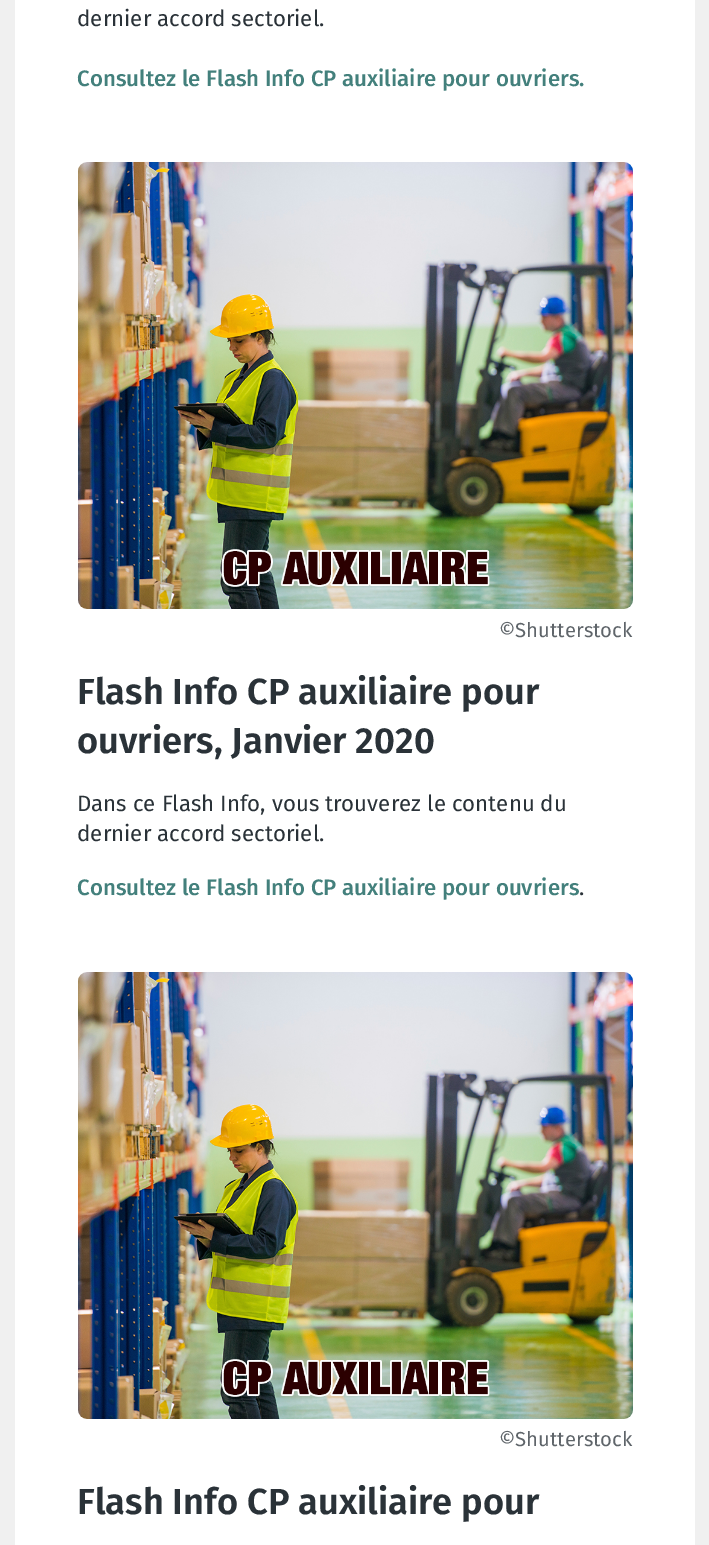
%!PS
<< /PageSize [709 1545] >> setpagedevice
/rgb { dup -16 bitshift 255 div exch dup -8 bitshift 255 and 255 div exch 255 and 255 div setrgbcolor } def
/font { [ exch dup neg 0 0 3 -1 roll 0 0 ] selectfont } def
/text { moveto show } def
/picture { 5 dict begin { /h /w /y /x /name } { exch def } forall
  gsave x y translate w h scale
  w h 8 [w 0 0 h 0 0] name (r) file false 3 colorimage grestore end } def
0 1545 translate 1 -1 scale
4 setmiterlimit
/s1 { /FiraSans-Regular 22.25 font 16#2A3238 rgb } def
/s2 { /FiraSans-Medium 22.25 font 16#43807C rgb } def
/s3 { /FiraSans-Regular 20.25 font 16#5F656A rgb } def
/s4 { /FiraSans-SemiBold 36.25 font 16#2A3238 rgb } def
16#F0F0F0 rgb
0 0 709 1545 rectfill
16#FFFFFF rgb
15 0 680 1545 rectfill
s1
(dernier accord sectoriel.) 77 26 text
s2
(Consultez le Flash Info CP auxiliaire pour ouvriers.) 77 86 text
(pic1.raw) 78 162 555 447 picture
s3
(©Shutterstock) 499 637 text
s4
(Flash Info CP auxiliaire pour) 77 704 text
(ouvriers, Janvier 2020) 77 753 text
s1
(Dans ce Flash Info, vous trouverez le contenu du) 77 811 text
(dernier accord sectoriel.) 77 841 text
s2
(Consultez le Flash Info CP auxiliaire pour ouvriers) 77 895 text
s1
(.) 579 895 text
(pic2.raw) 78 972 555 447 picture
s3
(©Shutterstock) 499 1446 text
s4
(Flash Info CP auxiliaire pour) 77 1514 text
showpage
